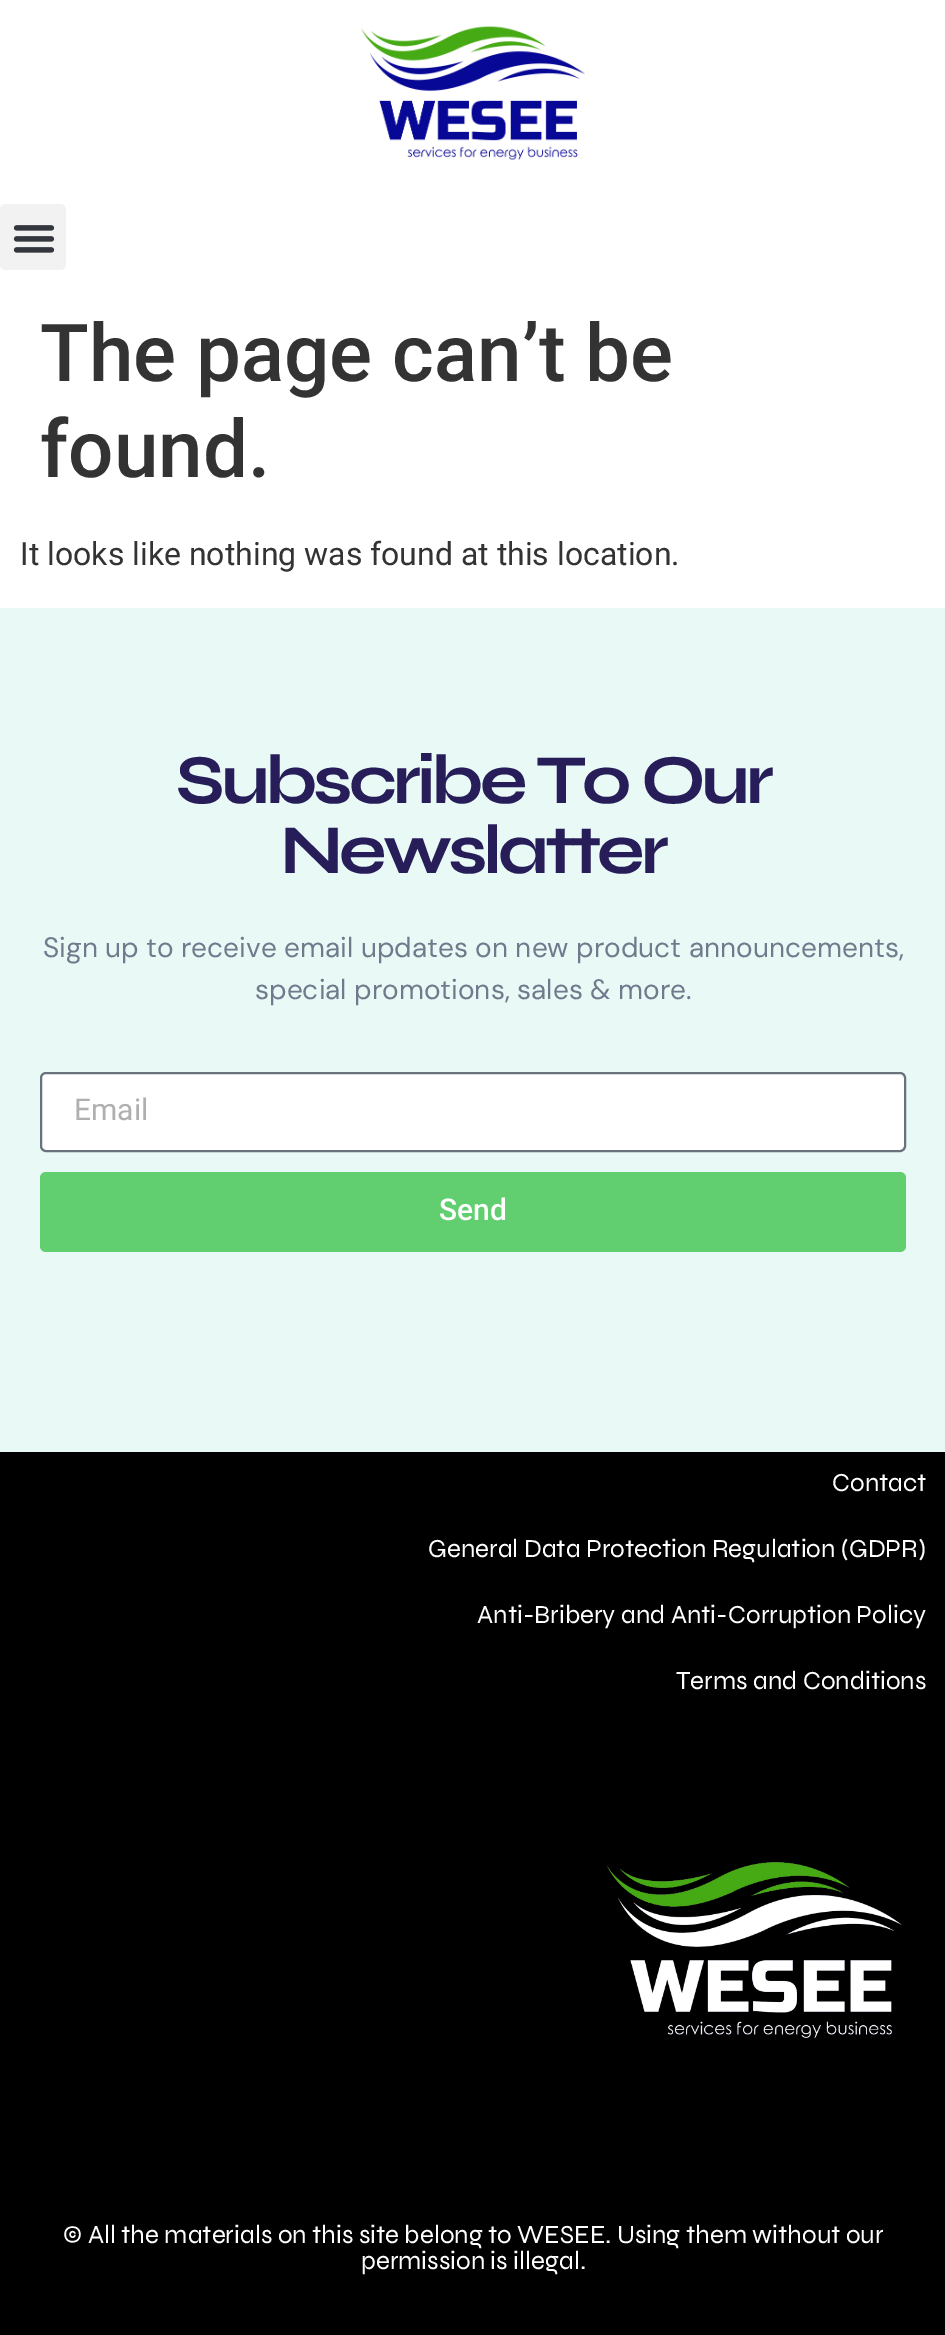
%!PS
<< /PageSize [945 2335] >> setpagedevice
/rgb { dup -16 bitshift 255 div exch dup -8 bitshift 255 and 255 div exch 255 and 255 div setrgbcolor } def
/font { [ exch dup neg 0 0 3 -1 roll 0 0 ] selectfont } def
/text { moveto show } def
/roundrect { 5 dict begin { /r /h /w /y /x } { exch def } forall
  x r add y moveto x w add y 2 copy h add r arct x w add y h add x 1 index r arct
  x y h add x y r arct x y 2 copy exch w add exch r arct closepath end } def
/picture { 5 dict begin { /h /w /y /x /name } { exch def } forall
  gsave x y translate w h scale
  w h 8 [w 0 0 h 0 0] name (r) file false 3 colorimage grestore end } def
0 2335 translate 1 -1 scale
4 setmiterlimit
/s1 { /Roboto-Medium 80 font 16#333333 rgb } def
/s2 { /Roboto-Regular 32 font 16#333333 rgb } def
/s3 { /DMSans-Regular 28 font 16#707A8C rgb } def
/s4 { /Roboto-Regular 30 font 16#AFAFAF rgb } def
/s5 { /Roboto-Medium 30 font 16#FFFFFF rgb } def
/s6 { /Syne-Regular 26 font 16#FFFFFF rgb } def
16#FFFFFF rgb
0 0 945 2335 rectfill
(pic1.raw) 361 26 224 134 picture
16#F2F2F2 rgb
0 204 66 66 6 roundrect fill
(pic2.raw) 13 225 42 28 picture
s1
(The page can’t be) 40 381 text
(found.) 40 477 text
s2
(It looks like nothing was found at this location.) 20 565 text
16#E8F9F6 rgb
0 608 945 844 rectfill
/Syne-Bold 70 font
16#271E59 rgb
176 803 moveto -4 0 (Subscribe To Our) ashow
280 873 moveto -4 0 (Newslatter) ashow
s3
(Sign up to receive email updates on new product announcements,) 43 957 text
(special promotions, sales & more.) 255 999 text
16#FFFFFF rgb
41 1073 864 78 5 roundrect gsave fill grestore
16#69727D rgb
2 setlinewidth
stroke
s4
(Email) 74 1120 text
16#61CE70 rgb
40 1172 866 80 6 roundrect fill
s5
(Send) 439 1220 text
16#000000 rgb
0 1452 945 883 rectfill
s6
(Contact) 832 1491 text
(General Data Protection Regulation \(GDPR\)) 428 1557 text
(Anti-Bribery and Anti-Corruption Policy) 477 1623 text
(Terms and Conditions) 676 1689 text
(pic3.raw) 606 1862 296 176 picture
(© All the materials on this site belong to WESEE. Using them without our) 63 2243 text
(permission is illegal.) 361 2269 text
showpage
